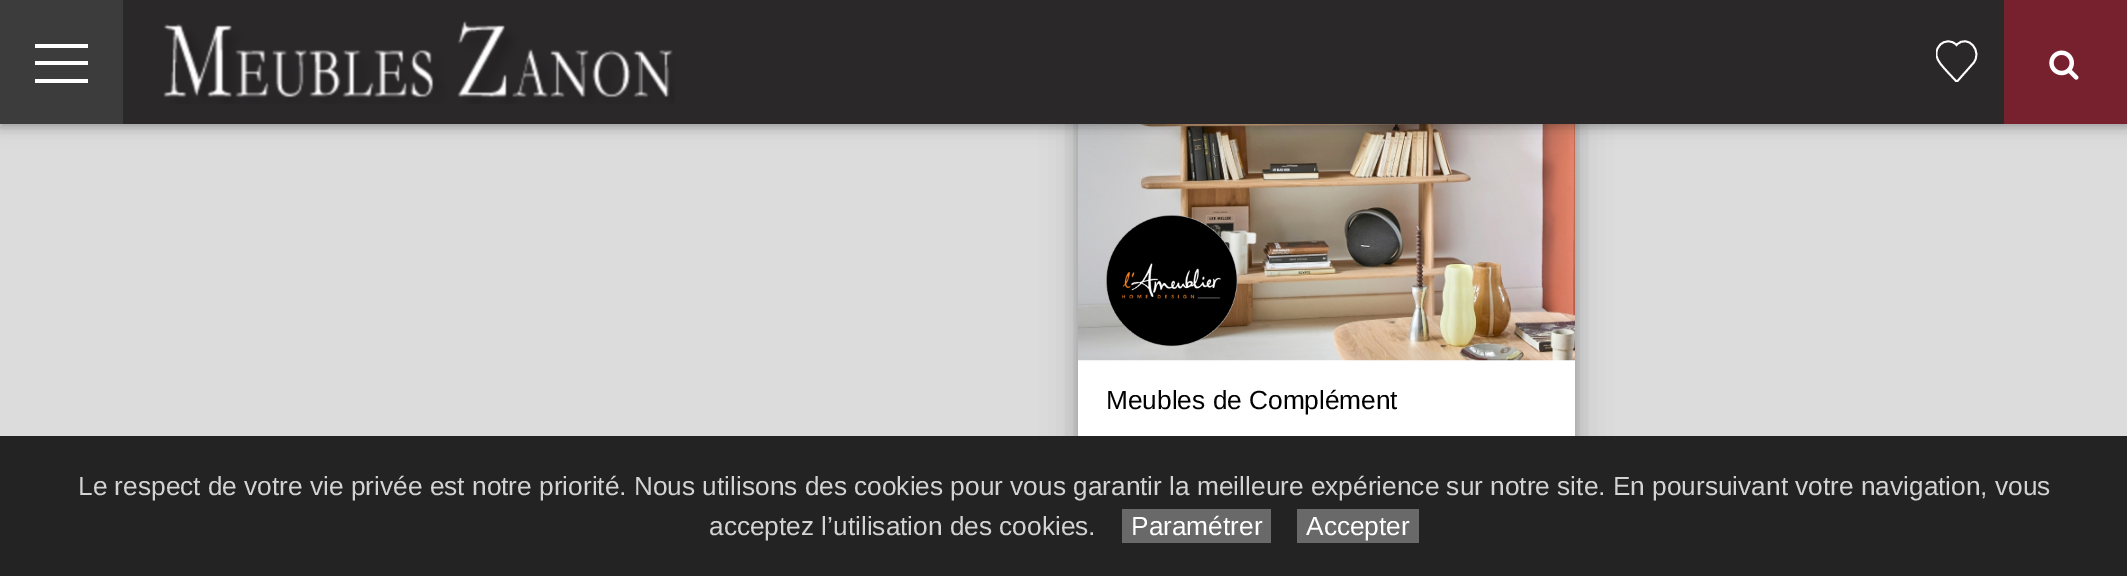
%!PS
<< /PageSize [2127 576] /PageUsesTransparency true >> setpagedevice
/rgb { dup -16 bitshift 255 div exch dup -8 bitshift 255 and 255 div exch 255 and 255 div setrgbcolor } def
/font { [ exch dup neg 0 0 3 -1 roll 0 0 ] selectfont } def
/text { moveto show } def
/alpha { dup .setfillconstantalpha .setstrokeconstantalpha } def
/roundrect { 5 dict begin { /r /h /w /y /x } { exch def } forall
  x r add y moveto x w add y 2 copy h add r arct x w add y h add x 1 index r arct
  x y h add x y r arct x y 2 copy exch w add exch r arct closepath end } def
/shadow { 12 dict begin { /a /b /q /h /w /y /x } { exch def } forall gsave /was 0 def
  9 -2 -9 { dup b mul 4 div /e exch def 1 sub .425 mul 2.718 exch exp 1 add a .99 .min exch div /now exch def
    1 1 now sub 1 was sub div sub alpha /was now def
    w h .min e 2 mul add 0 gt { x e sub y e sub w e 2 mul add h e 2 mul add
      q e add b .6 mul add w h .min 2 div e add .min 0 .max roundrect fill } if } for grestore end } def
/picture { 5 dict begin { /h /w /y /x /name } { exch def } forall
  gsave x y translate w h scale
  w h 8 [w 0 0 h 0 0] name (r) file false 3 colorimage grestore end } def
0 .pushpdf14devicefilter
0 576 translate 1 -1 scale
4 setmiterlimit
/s1 { /LiberationSans-Regular 26.25 font 16#000000 rgb } def
/s2 { /LiberationSans-Regular 26.25 font 16#D3D3D3 rgb } def
/s3 { /LiberationSans-Regular 26.25 font 16#FFFFFF rgb } def
16#DCDCDC rgb
0 0 2127 576 rectfill
16#000000 rgb
1078 -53 497 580 0 17.5 0.19 shadow
1078 -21 497 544 0 7 0.2 shadow
16#FFFFFF rgb
1078 360 497 76 rectfill
(pic3.raw) 1078 124 497 237 picture
16#000000 rgb
0 4 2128 124 0 9 0.12 shadow
0 4 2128 124 0 3.5 0.16 shadow
16#2B282A rgb
123 0 1881 124 rectfill
16#3C3C3D rgb
0 0 123 124 rectfill
16#FFFFFF rgb
35 44 53 4 rectfill
35 61 53 4 rectfill
35 79 53 4 rectfill
(pic1.raw) 163 20 512 84 picture
gsave
1936 40 42 42 rectclip
1.8 setlinewidth
1940 45 moveto 1930.5 55.5 1941.5 65 1948 72.5 curveto 1956 81 lineto 1957.5 81 lineto 1973 63.5 lineto 1983.5 52 1968 33 1956.5 45 curveto 1952 40 1944.5 40 1940 45 curveto closepath 1940 45 moveto 1940.5 45.5 lineto 1940 45 moveto 1940.5 45.5 lineto stroke
grestore
16#77212E rgb
2004 0 123 124 rectfill
(pic2.raw) 2049 50 30 30 picture
(pic4.raw) 1106 215 132 132 picture
s1
(Meubles de Complément) 1106 409 text
16#232323 rgb
0 436 2127 140 rectfill
s2
(Le respect de votre vie privée est notre priorité. Nous utilisons des cookies pour vous garantir la meilleure expérience sur notre site. En poursuivant votre navigation, vous) 78 495 text
(acceptez l’utilisation des cookies.) 709 535 text
16#696969 rgb
1122 509 149 34 rectfill
s3
(Paramétrer) 1131 535 text
16#696969 rgb
1297 509 122 34 rectfill
s3
(Accepter) 1306 535 text
.poppdf14devicefilter showpage
